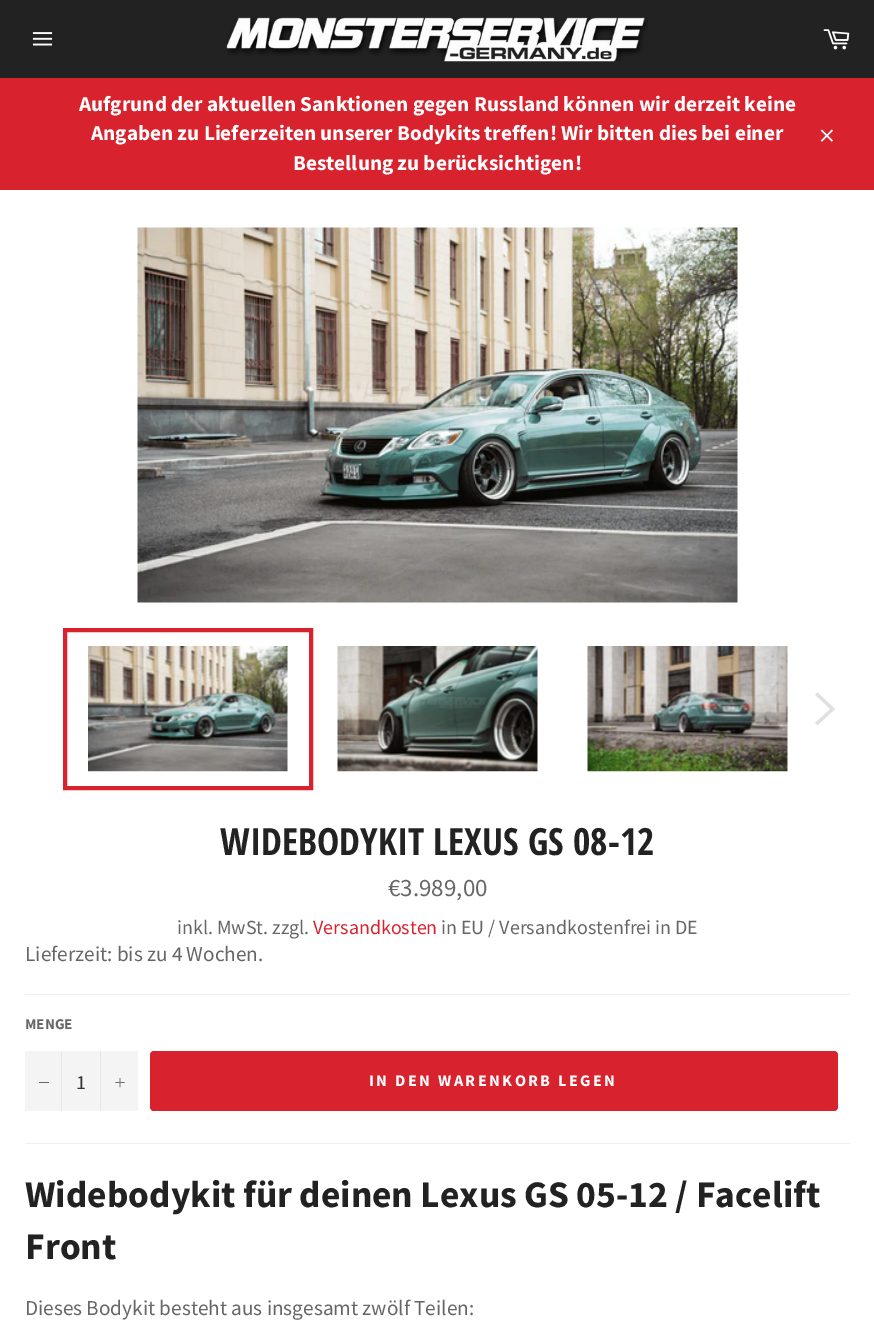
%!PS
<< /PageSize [874 1321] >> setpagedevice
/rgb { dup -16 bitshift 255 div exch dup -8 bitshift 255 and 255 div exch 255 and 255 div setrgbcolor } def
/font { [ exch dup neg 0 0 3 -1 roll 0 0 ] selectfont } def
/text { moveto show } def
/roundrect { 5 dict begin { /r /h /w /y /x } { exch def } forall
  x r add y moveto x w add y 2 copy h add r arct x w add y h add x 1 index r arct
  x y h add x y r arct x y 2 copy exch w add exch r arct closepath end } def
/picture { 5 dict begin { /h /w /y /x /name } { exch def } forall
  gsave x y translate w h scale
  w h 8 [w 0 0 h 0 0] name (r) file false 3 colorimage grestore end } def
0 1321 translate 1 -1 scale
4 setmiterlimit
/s1 { /SourceSansPro-Bold 21.25 font 16#FFFFFF rgb } def
/s2 { /OpenSansCondensed-Bold 37.5 font 16#222222 rgb } def
/s3 { /SourceSansPro-Regular 25 font 16#666666 rgb } def
/s4 { /SourceSansPro-Regular 20 font 16#666666 rgb } def
/s5 { /SourceSansPro-Regular 20 font 16#D8232F rgb } def
/s6 { /SourceSansPro-Regular 21.25 font 16#666666 rgb } def
/s7 { /SourceSansPro-Bold 15 font 16#666666 rgb } def
/s8 { /SourceSansPro-Regular 20 font 16#333333 rgb } def
/s9 { /SourceSansPro-Bold 37.5 font 16#222222 rgb } def
16#222222 rgb
0 0 874 1321 rectfill
(pic1.raw) 32 32 21 14 picture
(pic2.raw) 226 17 422 45 picture
(pic3.raw) 823 29 27 21 picture
16#D8232F rgb
0 78 874 112 rectfill
s1
(Aufgrund der aktuellen Sanktionen gegen Russland können wir derzeit keine) 79 111 text
(Angaben zu Lieferzeiten unserer Bodykits treffen! Wir bitten dies bei einer) 91 140 text
(Bestellung zu berücksichtigen!) 293 170 text
(pic4.raw) 820 129 13 13 picture
0 190 874 1131 rectfill
(pic5.raw) 137 227 601 376 picture
(pic6.raw) 88 646 200 126 picture
16#D8232F rgb
4 setlinewidth
65 630 246 158 rectstroke
(pic7.raw) 337 646 201 126 picture
(pic8.raw) 587 646 201 126 picture
16#E0E0E0 rgb
815 694.5 moveto 817.5 692.5 lineto 835 709 lineto 817.5 725 lineto 815 723 lineto 830.5 709 lineto closepath fill
s2
(WIDEBODYKIT LEXUS GS 08-12) 220 855 text
s3
(€3.989,00) 388 896 text
s4
(inkl. MwSt. zzgl.) 177 934 text
s5
(Versandkosten) 313 934 text
s4
(in EU / Versandkostenfrei in DE) 441 934 text
s6
(Lieferzeit: bis zu 4 Wochen.) 25 961 text
16#F0F0F0 rgb
25 994 825 1 rectfill
s7
(MENGE) 25 1029 text
16#F4F4F4 rgb
25 1051 113 60 rectfill
16#E7E7E7 rgb
61 1051 1 60 rectfill
16#666666 rgb
39 1082 10 1 rectfill
s8
(1) 76 1089 text
16#E7E7E7 rgb
100 1051 1 60 rectfill
(pic9.raw) 115 1078 10 10 picture
16#D8232F rgb
150 1051 688 60 4 roundrect fill
/SourceSansPro-Bold 16.25 font
16#FFFFFF rgb
369 1086 moveto 2.4 0 (IN DEN WARENKORB LEGEN) ashow
16#F0F0F0 rgb
25 1143 825 1 rectfill
s9
(Widebodykit für deinen Lexus GS 05-12 / Facelift) 25 1207 text
(Front) 25 1259 text
s6
(Dieses Bodykit besteht aus insgesamt zwölf Teilen:) 25 1315 text
showpage
